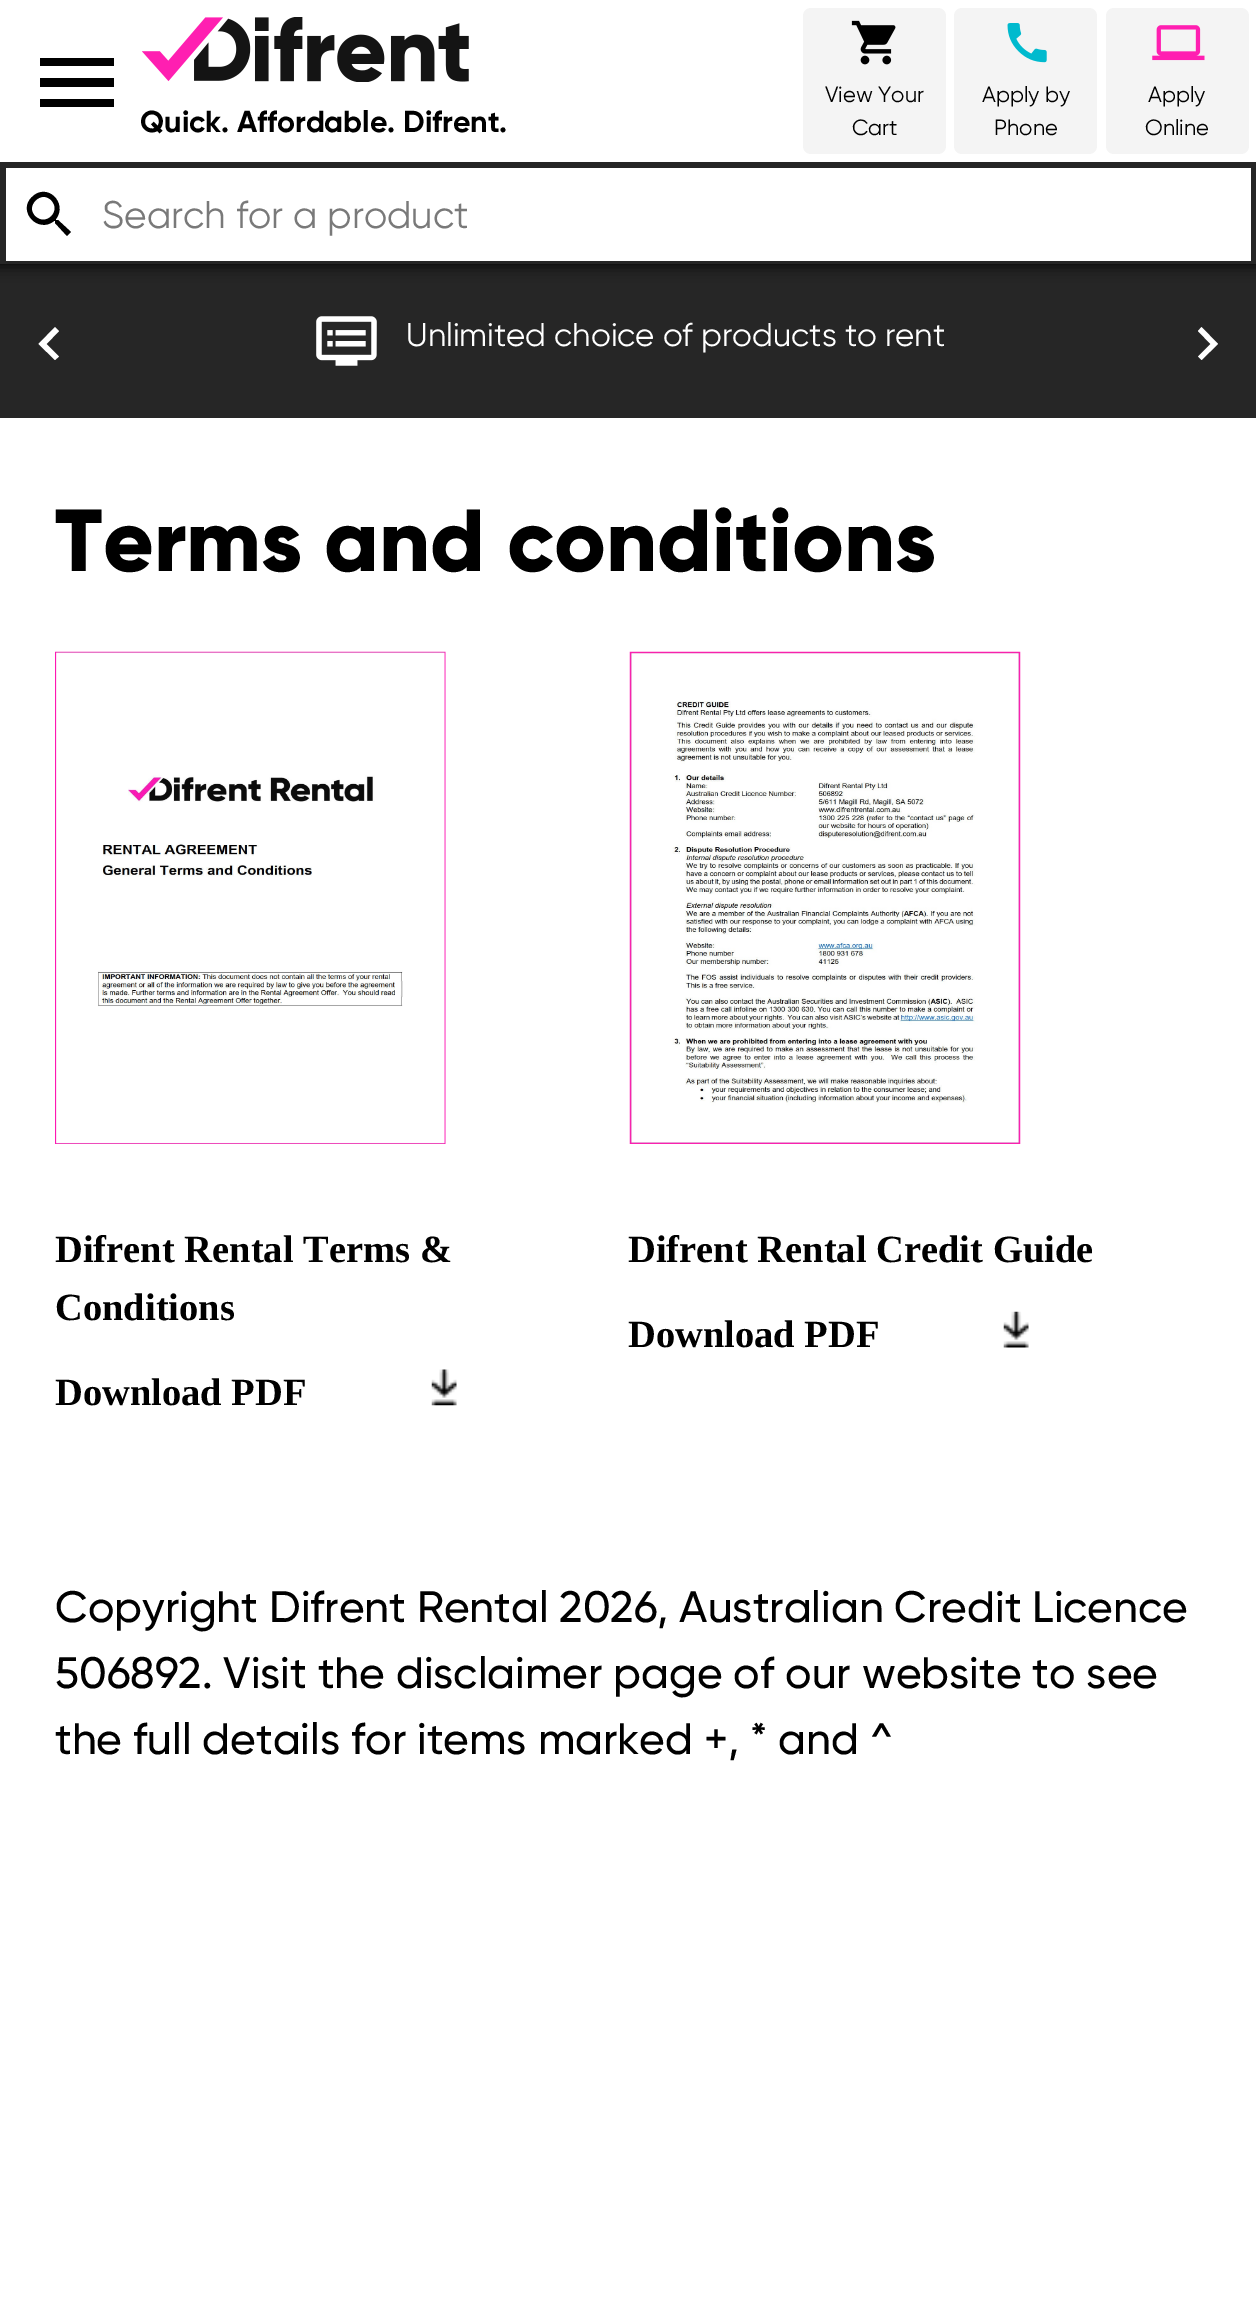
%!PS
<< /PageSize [1256 2314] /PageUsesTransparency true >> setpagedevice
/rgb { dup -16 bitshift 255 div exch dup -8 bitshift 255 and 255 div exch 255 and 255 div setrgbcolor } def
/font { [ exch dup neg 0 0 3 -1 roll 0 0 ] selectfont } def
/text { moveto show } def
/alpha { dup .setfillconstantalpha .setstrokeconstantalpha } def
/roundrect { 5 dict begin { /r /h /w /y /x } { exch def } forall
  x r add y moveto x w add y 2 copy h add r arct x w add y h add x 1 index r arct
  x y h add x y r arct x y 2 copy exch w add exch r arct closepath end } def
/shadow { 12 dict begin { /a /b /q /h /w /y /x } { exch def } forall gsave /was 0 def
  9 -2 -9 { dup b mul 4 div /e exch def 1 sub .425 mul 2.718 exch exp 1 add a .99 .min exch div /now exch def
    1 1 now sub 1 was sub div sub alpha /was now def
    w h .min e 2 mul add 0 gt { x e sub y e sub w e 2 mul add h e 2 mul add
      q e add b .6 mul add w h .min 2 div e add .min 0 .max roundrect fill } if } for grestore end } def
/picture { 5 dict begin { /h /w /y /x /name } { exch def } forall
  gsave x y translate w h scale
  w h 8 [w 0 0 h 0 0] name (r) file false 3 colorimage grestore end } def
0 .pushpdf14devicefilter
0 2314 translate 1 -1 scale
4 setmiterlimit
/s1 { /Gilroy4-Regular 30.25 font 16#000000 rgb } def
/s2 { /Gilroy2-Regular 22 font 16#000000 rgb } def
/s3 { /Gilroy2-Regular 38.5 font 16#797979 rgb } def
/s4 { /Gilroy2-Regular 32.75 font 16#FFFFFF rgb } def
/s5 { /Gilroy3-Regular 88 font 16#000000 rgb } def
/s6 { /LiberationSerif-Bold 38.5 font 16#000000 rgb } def
/s7 { /Gilroy-Regular 44 font 16#000000 rgb } def
16#FFFFFF rgb
0 0 1256 2314 rectfill
16#262626 rgb
0 264 1256 154 rectfill
16#000000 rgb
-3 -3 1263 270 0 7 0.75 shadow
16#FFFFFF rgb
0 0 1256 162 rectfill
16#000000 rgb
40 58 moveto 114 58 lineto 114 66 lineto 40 66 lineto closepath 40 87 moveto 40 78 lineto 114 78 lineto 114 87 lineto closepath 40 107 moveto 40 99 lineto 114 99 lineto 114 107 lineto closepath fill
(pic1.raw) 142 17 327 65 picture
s1
(Quick. Affordable. Difrent.) 140 132 text
16#F4F4F4 rgb
803 8 143 146 8 roundrect fill
(pic2.raw) 851 20 45 45 picture
s2
(View Your) 825 102 text
(Cart) 852 135 text
16#F4F4F4 rgb
954 8 143 146 8 roundrect fill
(pic3.raw) 1007 23 40 40 picture
s2
(Apply by) 982 102 text
(Phone) 994 135 text
16#F4F4F4 rgb
1106 8 143 146 8 roundrect fill
(pic4.raw) 1152 25 53 36 picture
s2
(Apply) 1148 102 text
(Online) 1145 135 text
16#FFFFFF rgb
6 168 1245 93 rectfill
16#000000 rgb
35 216 moveto 46 227 62 211 51 200 curveto 41 190 25 206 35 216 curveto closepath 58 220 moveto 71 232 lineto 67 236 lineto 55 223 lineto 55 221 lineto 54 221 lineto 38 234 17 211 32 197 curveto 47 182 68 203 56 219 curveto 56 220 lineto closepath fill
16#262626 rgb
0 162 1256 6 rectfill
1251 162 5 102 rectfill
0 261 1256 3 rectfill
0 162 6 102 rectfill
s3
(Search for a product) 102 228 text
(pic5.raw) 316 316 61 50 picture
s4
(Unlimited choice of products to rent) 406 346 text
59 331 moveto 46.5 344 lineto 59 356.5 lineto 55 360 lineto 38.5 344 lineto 55 327 lineto closepath fill
1201.5 327 moveto 1218 344 lineto 1201.5 360 lineto 1198 356.5 lineto 1210.5 344 lineto 1198 331 lineto closepath fill
s5
(Terms and conditions) 55 571 text
(pic6.raw) 55 651 391 493 picture
s6
(Difrent Rental Terms &) 55 1262 text
(Conditions) 55 1320 text
(Download PDF) 55 1405 text
(pic7.raw) 431 1369 26 37 picture
(pic8.raw) 629 651 392 493 picture
(Difrent Rental Credit Guide) 628 1262 text
(Download PDF) 628 1347 text
(pic9.raw) 1003 1311 26 37 picture
s7
(Copyright Difrent Rental 2026, Australian Credit Licence) 55 1622 text
(506892. Visit the disclaimer page of our website to see) 55 1688 text
(the full details for items marked +, * and ^) 55 1754 text
.poppdf14devicefilter showpage
